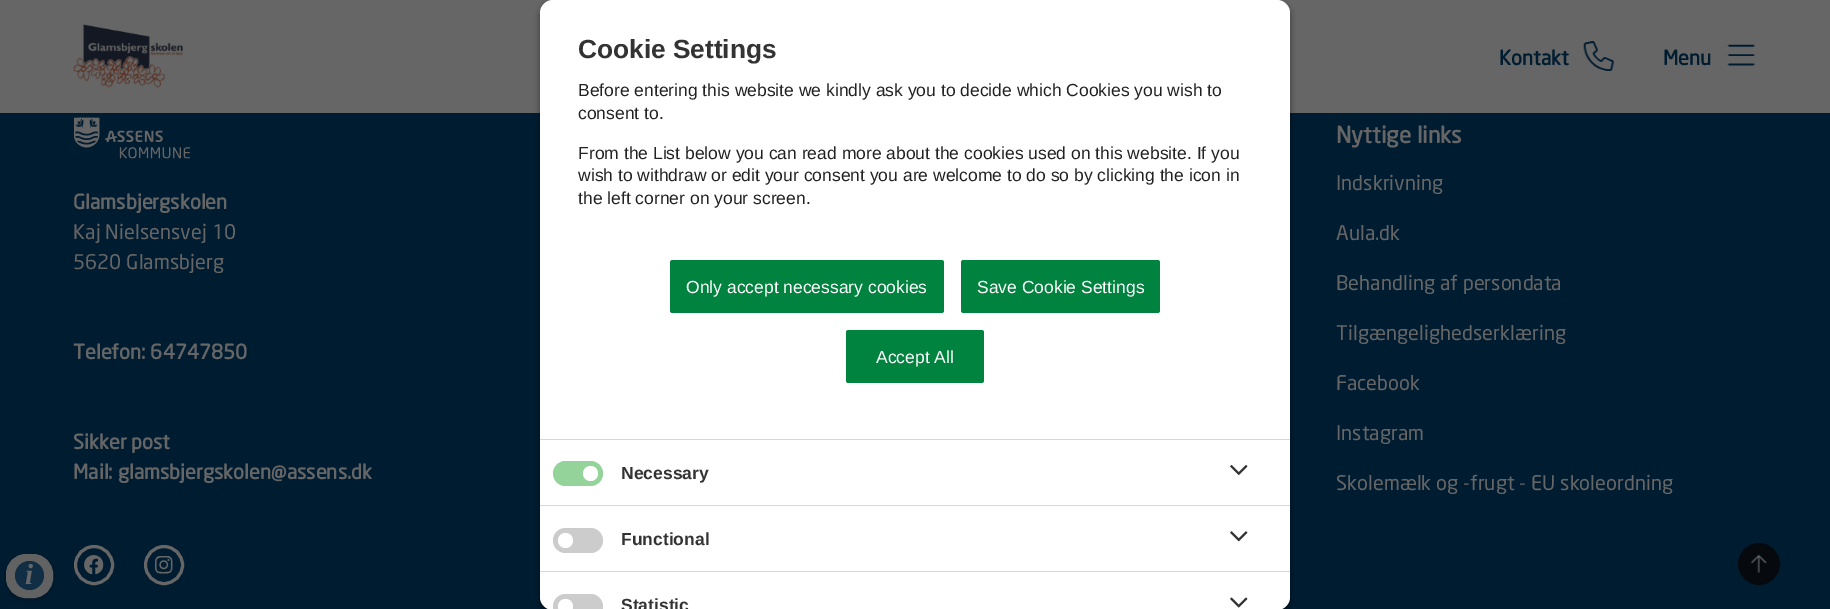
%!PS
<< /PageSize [1830 609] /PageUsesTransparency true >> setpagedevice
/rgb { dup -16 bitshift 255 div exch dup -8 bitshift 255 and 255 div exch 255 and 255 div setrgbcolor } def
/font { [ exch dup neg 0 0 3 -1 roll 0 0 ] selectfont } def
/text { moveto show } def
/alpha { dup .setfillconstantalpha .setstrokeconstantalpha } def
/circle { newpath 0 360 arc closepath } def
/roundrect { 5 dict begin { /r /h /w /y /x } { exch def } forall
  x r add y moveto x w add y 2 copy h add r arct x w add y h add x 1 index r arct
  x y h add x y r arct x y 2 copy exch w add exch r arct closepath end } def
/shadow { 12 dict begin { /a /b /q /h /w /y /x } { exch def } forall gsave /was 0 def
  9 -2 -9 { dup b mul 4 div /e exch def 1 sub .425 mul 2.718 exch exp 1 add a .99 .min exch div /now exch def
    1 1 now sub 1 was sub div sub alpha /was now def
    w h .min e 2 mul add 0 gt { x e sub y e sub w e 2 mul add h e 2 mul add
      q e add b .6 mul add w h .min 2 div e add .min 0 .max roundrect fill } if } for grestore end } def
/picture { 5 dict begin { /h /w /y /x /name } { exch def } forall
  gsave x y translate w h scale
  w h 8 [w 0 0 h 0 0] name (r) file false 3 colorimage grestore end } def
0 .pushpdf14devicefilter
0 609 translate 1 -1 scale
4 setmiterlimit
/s1 { /LiberationSans-Bold 26.25 font 16#333333 rgb } def
/s2 { /LiberationSans-Regular 17.5 font 16#222222 rgb } def
/s3 { /LiberationSans-Regular 17.5 font 16#FFFFFF rgb } def
/s4 { /LiberationSans-Bold 17.5 font 16#333333 rgb } def
/s5 { /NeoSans-Bold 20 font 16#001C31 rgb } def
/s6 { /NeoSans-Bold 20 font 16#666666 rgb } def
/s7 { /NeoSans-Regular 20 font 16#666666 rgb } def
/s8 { /NeoSans-Bold 22.5 font 16#666666 rgb } def
/s9 { /LiberationSerif-BoldItalic 29 font 16#666666 rgb } def
16#001C31 rgb
0 0 1830 609 rectfill
16#666666 rgb
0 0 1830 113 rectfill
16#000000 rgb
540 3 750 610 13 3 0.46 shadow
16#FFFFFF rgb
553 0 moveto 1277 0 lineto 1284 0 1290 6 1290 13 curveto 1290 440 lineto 540 440 lineto 540 13 lineto 540 6 546 0 553 0 curveto closepath fill
16#D8D8D8 rgb
540 439 750 1 rectfill
s1
(Cookie Settings) 578 58 text
s2
(Before entering this website we kindly ask you to decide which Cookies you wish to) 578 96 text
(consent to.) 578 119 text
(From the List below you can read more about the cookies used on this website. If you) 578 159 text
(wish to withdraw or edit your consent you are welcome to do so by clicking the icon in) 578 181 text
(the left corner on your screen.) 578 204 text
16#00833E rgb
670 260 274 53 2.5 roundrect fill
s3
(Only accept necessary cookies) 686 293 text
16#00833E rgb
961 260 199 53 2.5 roundrect fill
s3
(Save Cookie Settings) 977 293 text
16#00833E rgb
846 330 138 53 2.5 roundrect fill
s3
(Accept All) 876 363 text
540 440 moveto 1290 440 lineto 1290 597 lineto 1290 604 1284 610 1277 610 curveto 553 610 lineto 546 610 540 604 540 597 curveto closepath fill
16#D8D8D8 rgb
540 505 750 1 rectfill
16#94D49A rgb
553 461 50 25 12.5 roundrect fill
16#FFFFFF rgb
590.5 473.5 7.5 circle fill
s4
(Necessary) 621 479 text
(pic1.raw) 1230 465 18 10 picture
16#D8D8D8 rgb
540 571 750 1 rectfill
16#CCCCCC rgb
553 528 50 25 12.5 roundrect fill
16#FFFFFF rgb
565.5 540.5 7.5 circle fill
s4
(Functional) 621 545 text
(pic2.raw) 1230 531 18 11 picture
16#CCCCCC rgb
553 594 50 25 12.5 roundrect fill
16#FFFFFF rgb
565.5 606.5 7.5 circle fill
s4
(Statistic) 621 611 text
(pic3.raw) 1230 597 18 11 picture
(pic4.raw) 73 24 110 64 picture
s5
(Kontakt) 1499 65 text
(pic5.raw) 1583 41 31 30 picture
(Menu) 1663 65 text
(pic6.raw) 1727 44 28 22 picture
(pic7.raw) 74 117 116 42 picture
s6
(Glamsbjergskolen) 73 209 text
s7
(Kaj Nielsensvej 10) 73 239 text
(5620 Glamsbjerg) 73 269 text
s6
(Telefon: 64747850) 73 359 text
(Sikker post) 73 449 text
(Mail: glamsbjergskolen@assens.dk) 73 479 text
3 setlinewidth
94 565 18.5 circle stroke
(pic8.raw) 84 555 20 20 picture
164 565 18.5 circle stroke
(pic9.raw) 155 556 18 18 picture
s8
(Nyttige links) 1336 143 text
s7
(Indskrivning) 1336 190 text
(Aula.dk) 1336 240 text
(Behandling af persondata) 1336 290 text
(Tilgængelighedserklæring) 1336 340 text
(Facebook) 1336 390 text
(Instagram) 1336 440 text
(Skolemælk og -frugt - EU skoleordning) 1336 490 text
16#060A0E rgb
1759 564 20.5 circle gsave fill grestore
1 setlinewidth
stroke
(pic10.raw) 1750 554 17 19 picture
16#000000 rgb
6 556 47 44 20 3 0.26 shadow
16#626262 rgb
6.5 554.5 46 43 19.5 roundrect gsave fill grestore
16#616161 rgb
stroke
16#122E44 rgb
29.5 575.5 14.5 circle fill
s9
(i) 25 584 text
.poppdf14devicefilter showpage
